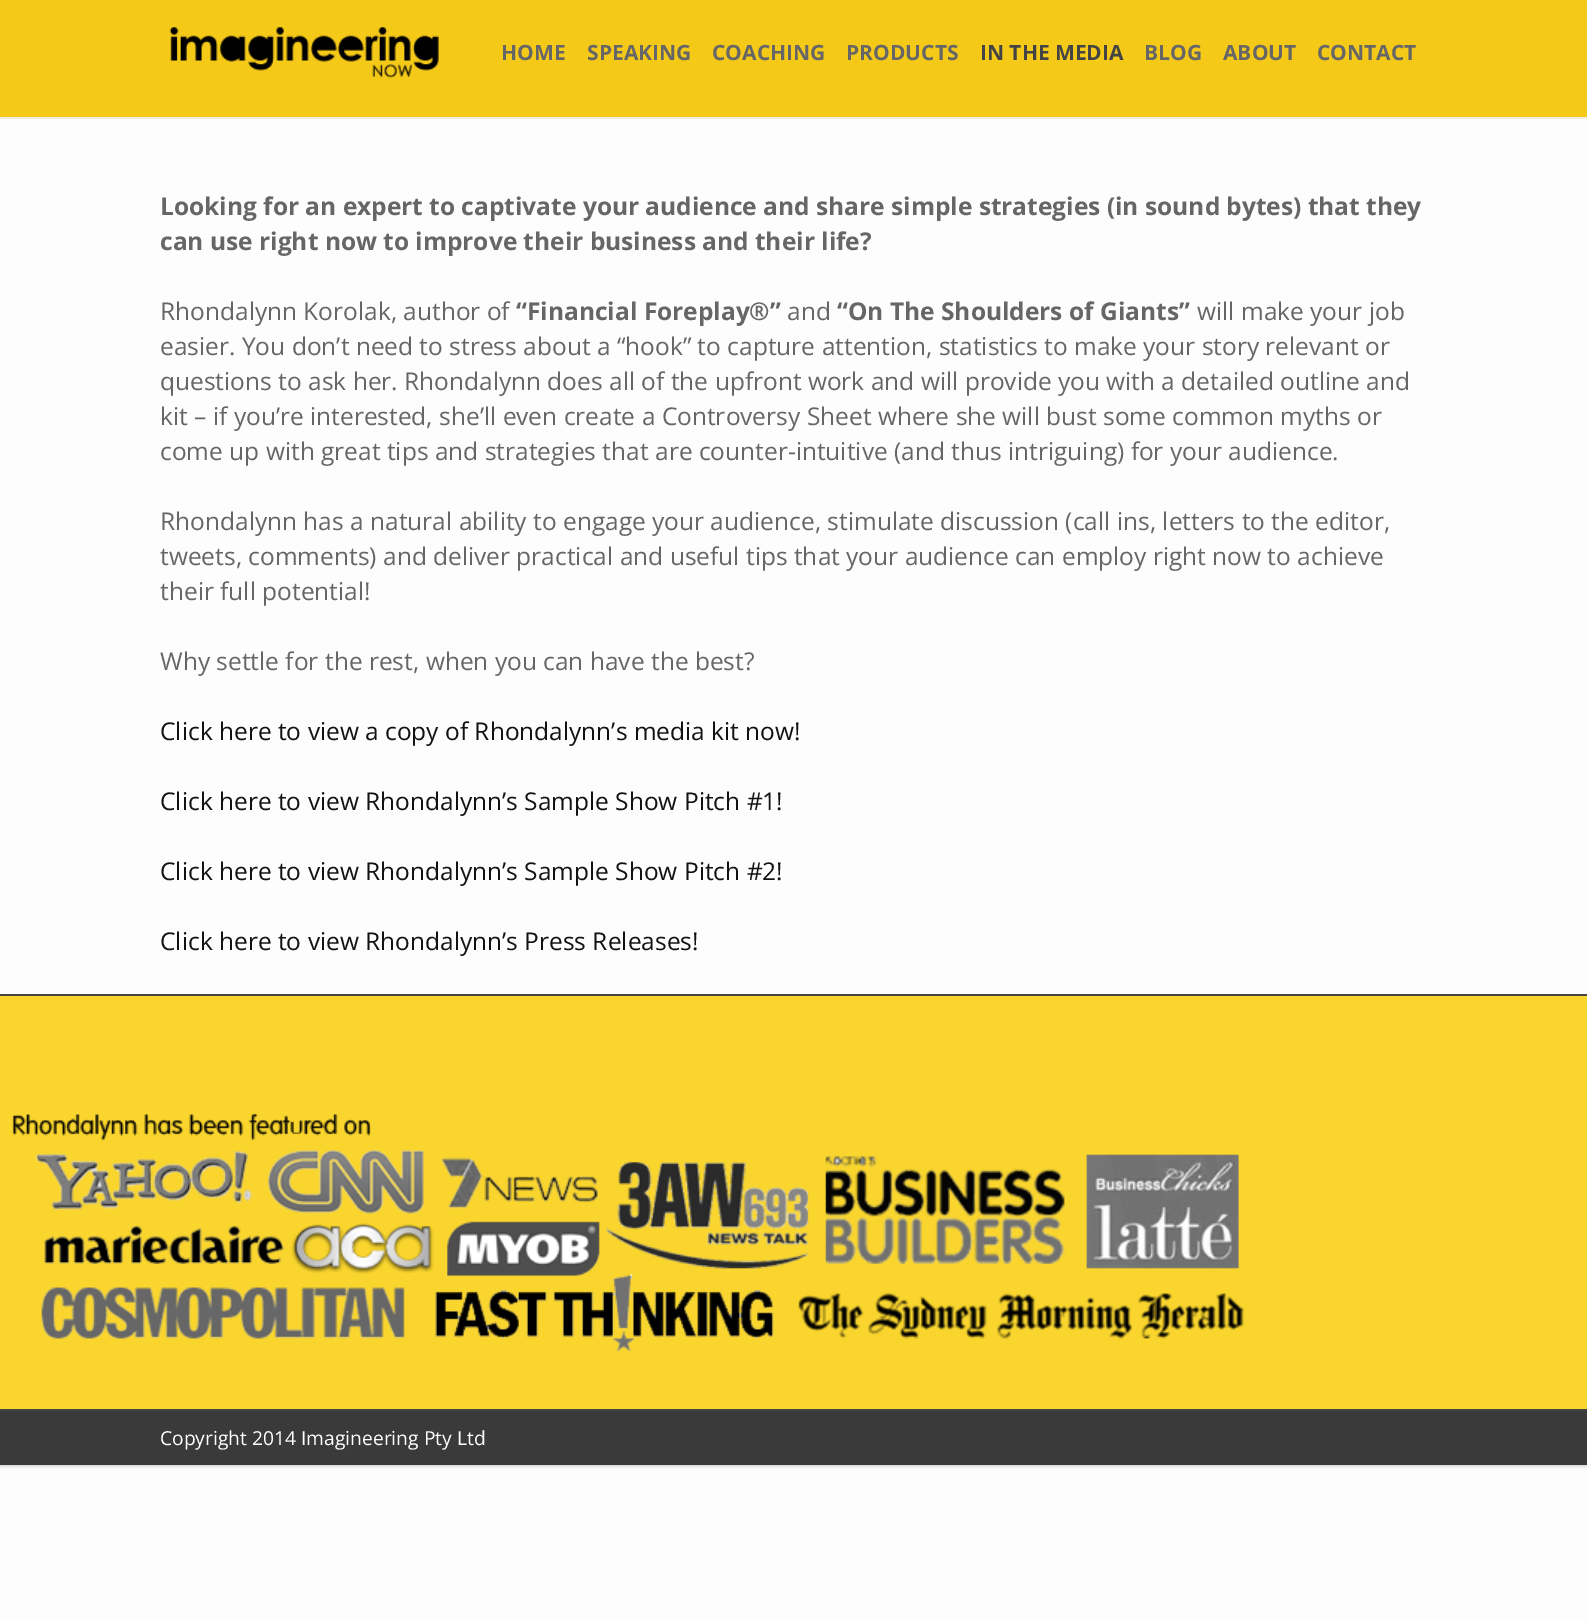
%!PS
<< /PageSize [1587 1622] /PageUsesTransparency true >> setpagedevice
/rgb { dup -16 bitshift 255 div exch dup -8 bitshift 255 and 255 div exch 255 and 255 div setrgbcolor } def
/font { [ exch dup neg 0 0 3 -1 roll 0 0 ] selectfont } def
/text { moveto show } def
/alpha { dup .setfillconstantalpha .setstrokeconstantalpha } def
/roundrect { 5 dict begin { /r /h /w /y /x } { exch def } forall
  x r add y moveto x w add y 2 copy h add r arct x w add y h add x 1 index r arct
  x y h add x y r arct x y 2 copy exch w add exch r arct closepath end } def
/shadow { 12 dict begin { /a /b /q /h /w /y /x } { exch def } forall gsave /was 0 def
  9 -2 -9 { dup b mul 4 div /e exch def 1 sub .425 mul 2.718 exch exp 1 add a .99 .min exch div /now exch def
    1 1 now sub 1 was sub div sub alpha /was now def
    w h .min e 2 mul add 0 gt { x e sub y e sub w e 2 mul add h e 2 mul add
      q e add b .6 mul add w h .min 2 div e add .min 0 .max roundrect fill } if } for grestore end } def
/picture { 5 dict begin { /h /w /y /x /name } { exch def } forall
  gsave x y translate w h scale
  w h 8 [w 0 0 h 0 0] name (r) file false 3 colorimage grestore end } def
0 .pushpdf14devicefilter
0 1622 translate 1 -1 scale
4 setmiterlimit
/s1 { /OpenSans-Bold 21 font 16#666666 rgb } def
/s2 { /OpenSans-Bold 21 font 16#444444 rgb } def
/s3 { /OpenSans-Bold 24.5 font 16#666666 rgb } def
/s4 { /OpenSans-Regular 24.5 font 16#666666 rgb } def
/s5 { /OpenSans-Regular 24.5 font 16#121212 rgb } def
/s6 { /OpenSans-Regular 19.25 font 16#FFFFFF rgb } def
16#FDFDFD rgb
0 0 1587 1622 rectfill
16#B4B4B4 rgb
0 0 1587 1465 0 2.5 1 shadow
16#FDFDFD rgb
0 119 1587 875 rectfill
16#F5C918 rgb
0 0 1587 117 rectfill
16#EDEDED rgb
0 117 1587 2 rectfill
(pic1.raw) 169 27 270 51 picture
s1
(HOME) 501 60 text
(SPEAKING) 587 60 text
(COACHING) 712 60 text
(PRODUCTS) 846 60 text
s2
(IN THE MEDIA) 980 60 text
s1
(BLOG) 1144 60 text
(ABOUT) 1223 60 text
(CONTACT) 1317 60 text
s3
(Looking for an expert to captivate your audience and share simple strategies \(in sound bytes\) that they) 160 215 text
(can use right now to improve their business and their life?) 160 250 text
s4
(Rhondalynn Korolak, author of) 160 320 text
s3
(“Financial Foreplay®”) 516 320 text
s4
(and) 787 320 text
s3
(“On The Shoulders of Giants”) 837 320 text
s4
(will make your job) 1197 320 text
(easier. You don’t need to stress about a “hook” to capture attention, statistics to make your story relevant or) 160 355 text
(questions to ask her. Rhondalynn does all of the upfront work and will provide you with a detailed outline and) 160 390 text
(kit – if you’re interested, she’ll even create a Controversy Sheet where she will bust some common myths or) 160 425 text
(come up with great tips and strategies that are counter-intuitive \(and thus intriguing\) for your audience.) 160 460 text
(Rhondalynn has a natural ability to engage your audience, stimulate discussion \(call ins, letters to the editor,) 160 530 text
(tweets, comments\) and deliver practical and useful tips that your audience can employ right now to achieve) 160 565 text
(their full potential!) 160 600 text
(Why settle for the rest, when you can have the best?) 160 670 text
s5
(Click here to view a copy of Rhondalynn’s media kit now!) 160 740 text
(Click here to view Rhondalynn’s Sample Show Pitch #1!) 160 810 text
(Click here to view Rhondalynn’s Sample Show Pitch #2!) 160 880 text
(Click here to view Rhondalynn’s Press Releases!) 160 950 text
16#F9D52D rgb
0 996 1587 413 rectfill
16#444444 rgb
0 994 1587 2 rectfill
(pic2.raw) 12 1113 1232 239 picture
16#3A3A3A rgb
0 1411 1587 54 rectfill
16#444444 rgb
0 1409 1587 2 rectfill
s6
(Copyright 2014 Imagineering Pty Ltd) 160 1445 text
.poppdf14devicefilter showpage
